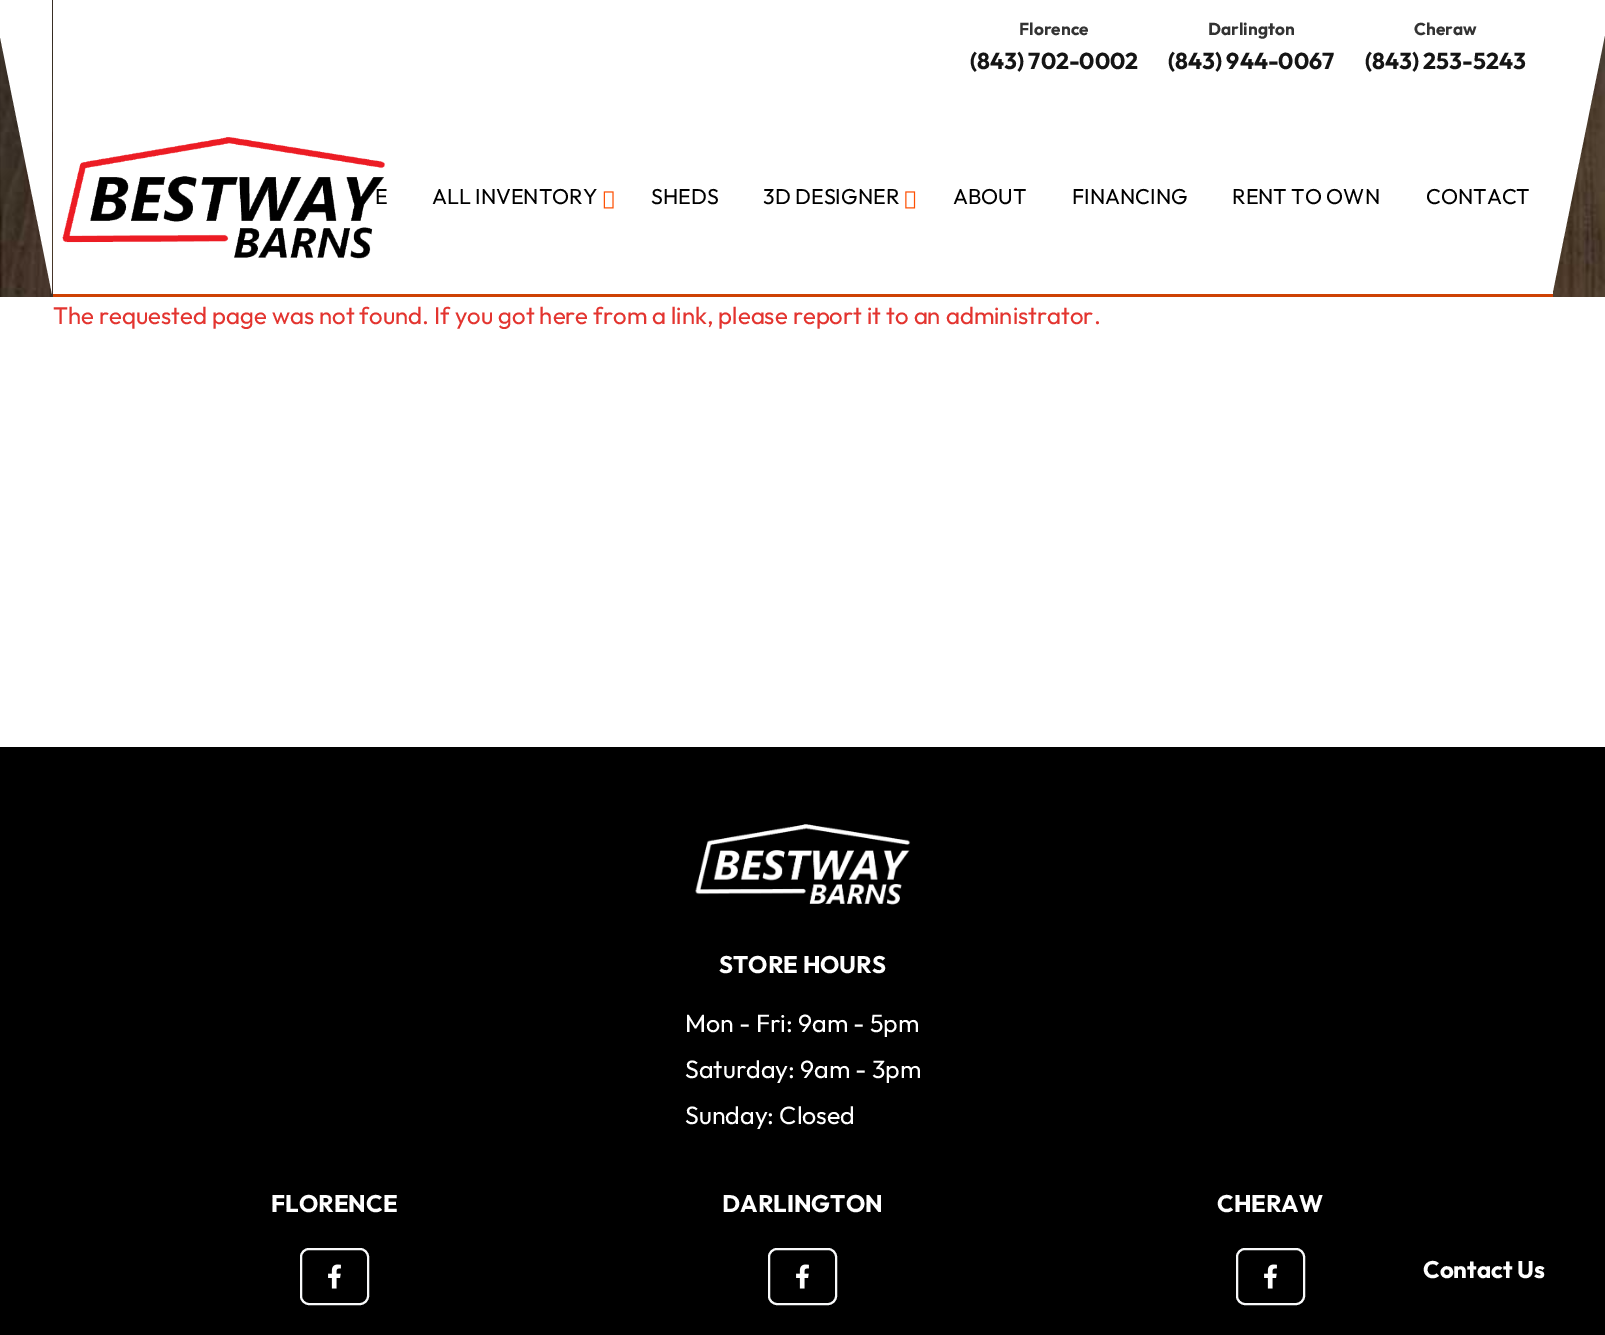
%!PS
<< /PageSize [1605 1335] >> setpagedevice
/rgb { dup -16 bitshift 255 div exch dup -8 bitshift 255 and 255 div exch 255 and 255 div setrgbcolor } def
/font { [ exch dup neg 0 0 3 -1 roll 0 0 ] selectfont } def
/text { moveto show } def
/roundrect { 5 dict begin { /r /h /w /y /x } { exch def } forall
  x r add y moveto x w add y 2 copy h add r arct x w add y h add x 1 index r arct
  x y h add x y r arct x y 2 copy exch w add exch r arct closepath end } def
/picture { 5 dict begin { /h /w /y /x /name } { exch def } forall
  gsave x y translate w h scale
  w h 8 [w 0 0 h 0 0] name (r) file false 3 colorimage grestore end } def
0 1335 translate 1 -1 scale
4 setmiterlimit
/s1 { /Outfit-Bold 17.25 font 16#333333 rgb } def
/s2 { /Outfit-Bold 23 font 16#151515 rgb } def
/s3 { /Outfit-Regular 21.5 font 16#000000 rgb } def
/s4 { /Outfit-Regular 24 font 16#E3342F rgb } def
/s5 { /Outfit-Bold 24 font 16#FFFFFF rgb } def
/s6 { /Outfit-Regular 25 font 16#FFFFFF rgb } def
16#FFFFFF rgb
0 0 1605 1335 rectfill
(pic1.raw) 0 0 1605 297 picture
53 0 1500 294 rectfill
16#CE4103 rgb
53 294 1500 3 rectfill
16#FFFFFF rgb
-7 2 moveto -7 0 lineto 52 0 lineto 52 294 lineto closepath fill
s1
(Florence) 1019 35 text
s2
(\(843\) 702-0002) 970 69 text
s1
(Darlington) 1208 35 text
s2
(\(843\) 944-0067) 1168 69 text
s1
(Cheraw) 1414 35 text
s2
(\(843\) 253-5243) 1365 69 text
16#FFFFFF rgb
1553 0 moveto 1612 0 lineto 1553 291 lineto closepath fill
(pic2.raw) 62 137 323 122 picture
s3
(E) 375 204 text
(ALL INVENTORY) 432 204 text
(pic3.raw) 603 191 11 18 picture
(SHEDS) 651 204 text
(3D DESIGNER) 763 204 text
(pic4.raw) 905 191 11 18 picture
(ABOUT) 953 204 text
(FINANCING) 1072 204 text
(RENT TO OWN) 1232 204 text
(CONTACT) 1426 204 text
s4
(The requested page was not found. If you got here from a link, please report it to an administrator.) 53 324 text
16#000000 rgb
0 747 1605 588 rectfill
(pic5.raw) 695 824 216 81 picture
s5
(STORE HOURS) 719 973 text
s6
(Mon - Fri: 9am - 5pm) 685 1032 text
(Saturday: 9am - 3pm) 685 1078 text
(Sunday: Closed) 685 1124 text
s5
(FLORENCE) 271 1212 text
16#F8F9FA rgb
2 setlinewidth
301 1249 67 55 8 roundrect stroke
(pic6.raw) 328 1264 13 25 picture
s5
(DARLINGTON) 722 1212 text
16#F8F9FA rgb
769 1249 67 55 8 roundrect stroke
(pic6.raw) 796 1264 13 25 picture
s5
(CHERAW) 1217 1212 text
16#F8F9FA rgb
1237 1249 67 55 8 roundrect stroke
(pic6.raw) 1264 1264 13 25 picture
s5
(Contact Us) 1423 1278 text
showpage
